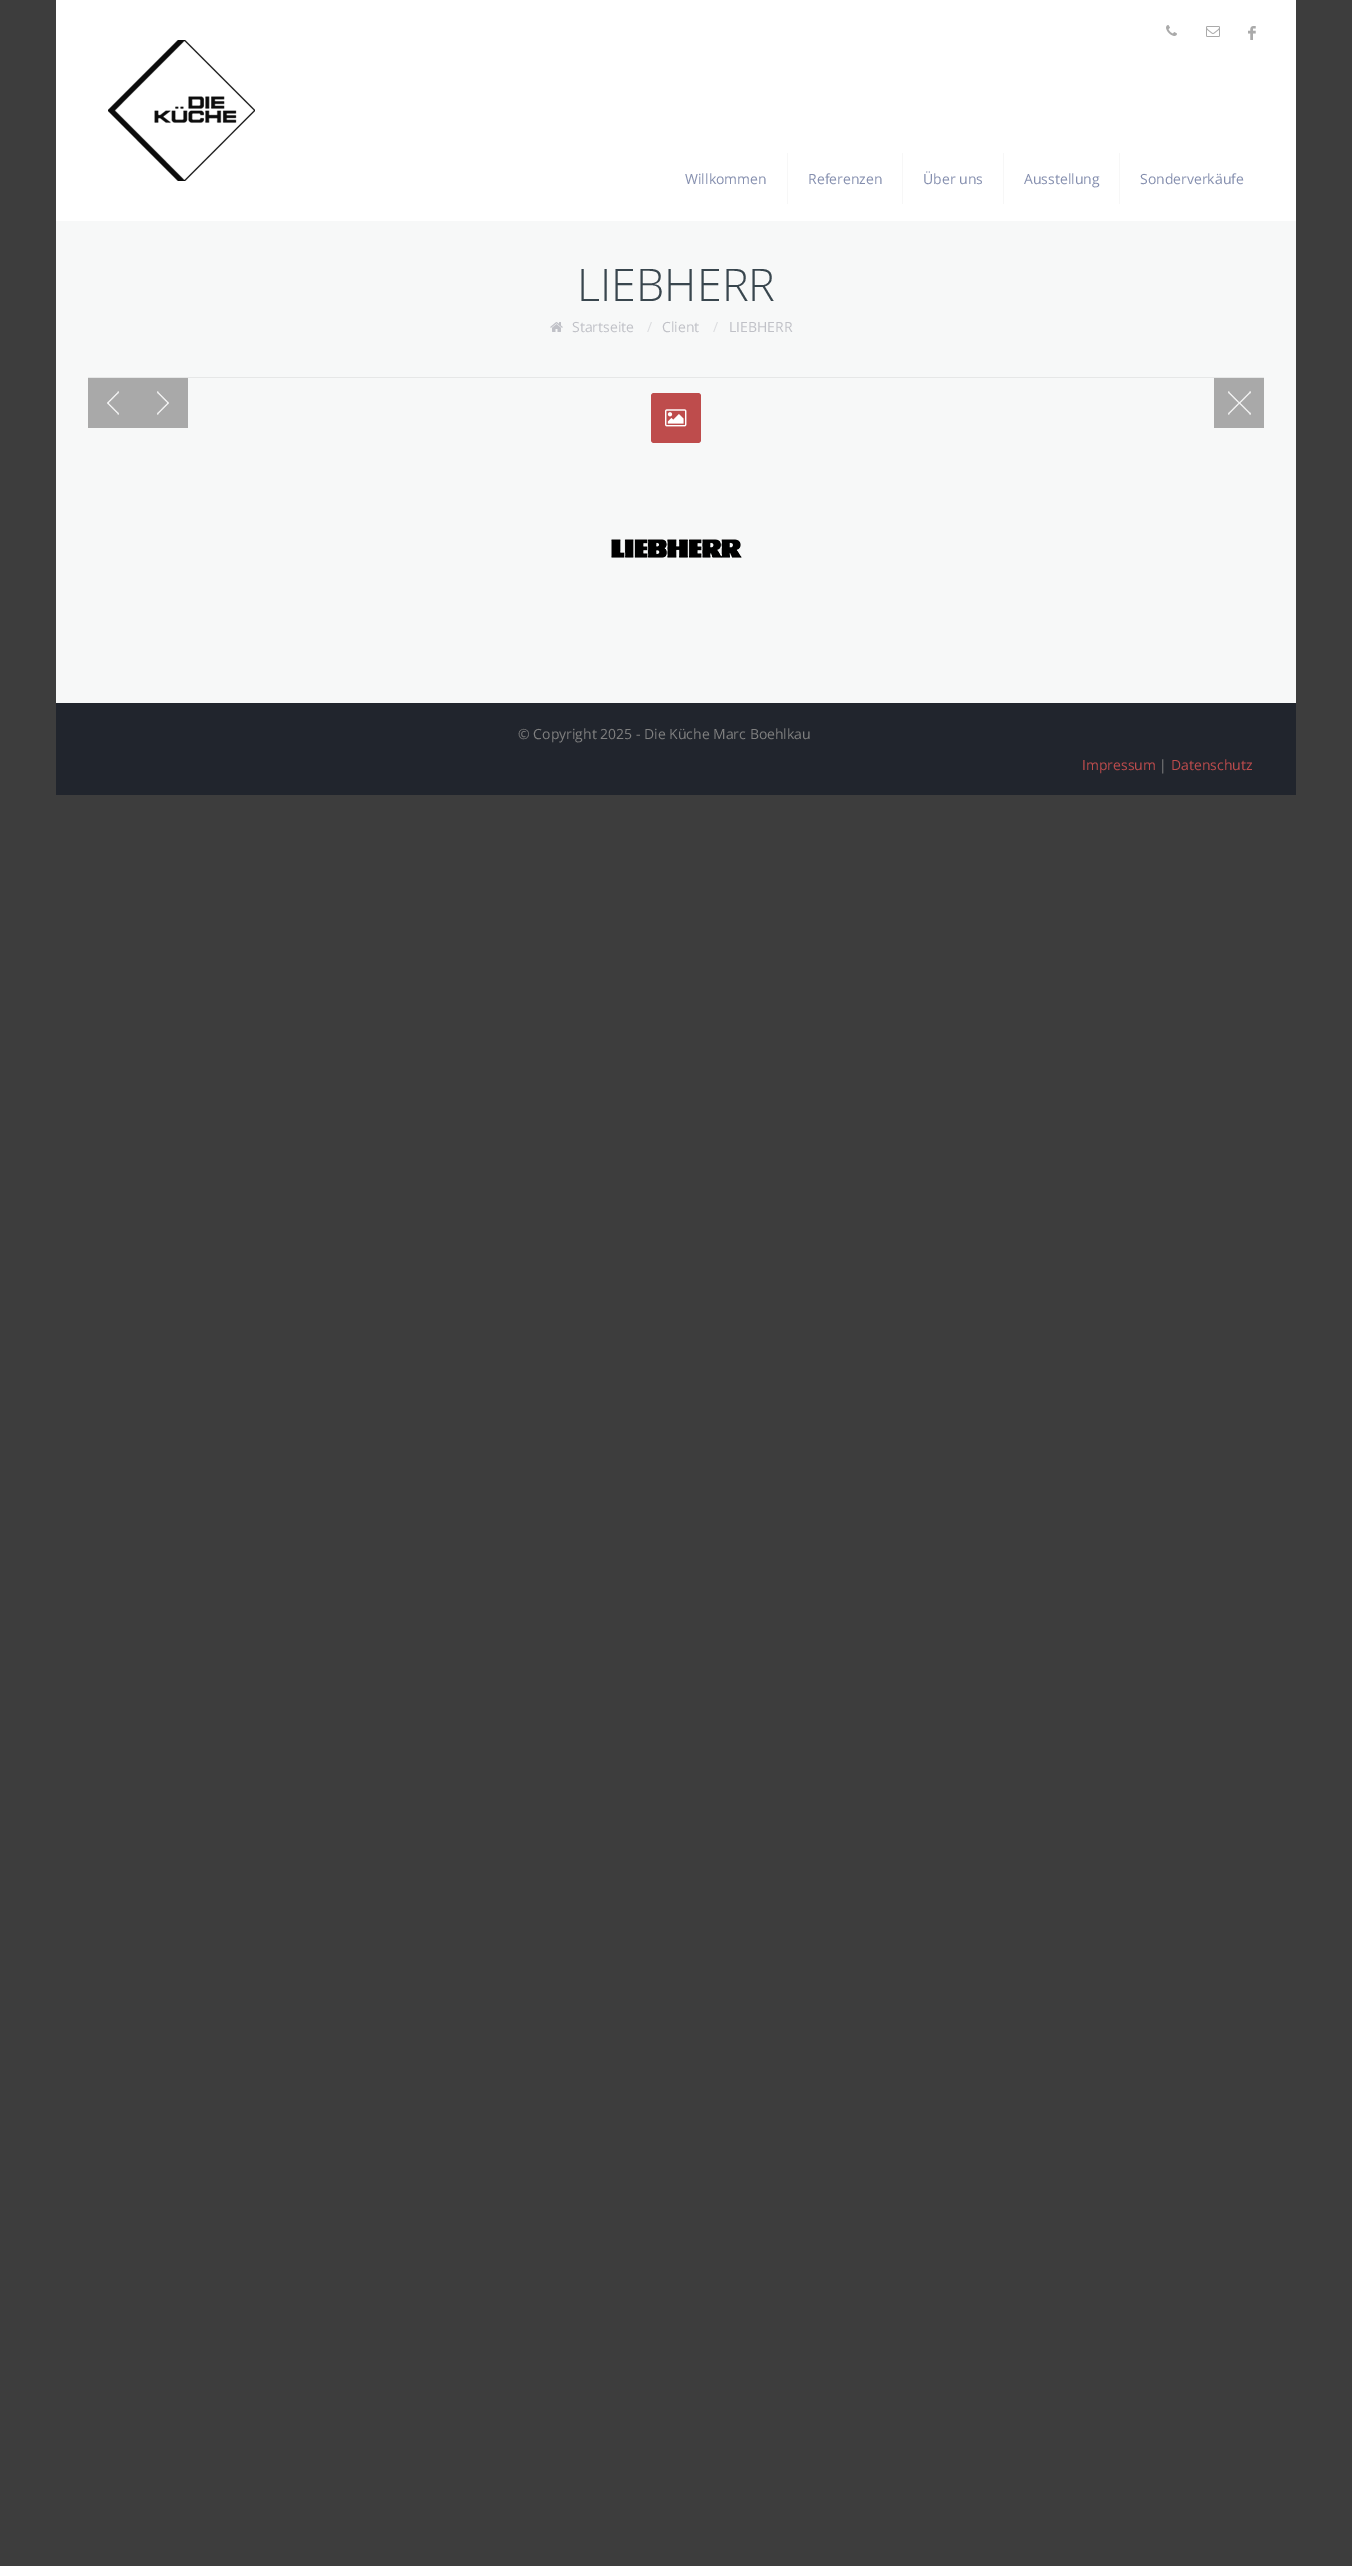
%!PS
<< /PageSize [1352 2566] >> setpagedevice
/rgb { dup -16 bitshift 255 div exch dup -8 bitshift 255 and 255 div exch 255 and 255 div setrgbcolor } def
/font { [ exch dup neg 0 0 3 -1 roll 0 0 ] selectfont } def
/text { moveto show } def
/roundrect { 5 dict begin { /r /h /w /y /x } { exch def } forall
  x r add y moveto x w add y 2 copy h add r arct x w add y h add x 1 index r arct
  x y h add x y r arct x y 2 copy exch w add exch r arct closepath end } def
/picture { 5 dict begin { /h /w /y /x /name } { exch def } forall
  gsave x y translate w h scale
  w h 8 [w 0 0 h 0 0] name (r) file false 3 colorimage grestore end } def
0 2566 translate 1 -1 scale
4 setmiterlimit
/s1 { /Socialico-Regular 23 font 16#AAAAAA rgb } def
/s2 { /OpenSans-Regular 14 font 16#848EAE rgb } def
/s3 { /OpenSans-Light 45 font 16#39464E rgb } def
/s4 { /OpenSans-Regular 14 font 16#C0C1C7 rgb } def
/s5 { /OpenSans-Regular 14 font 16#DCDDE0 rgb } def
/s6 { /OpenSans-Regular 14 font 16#808080 rgb } def
/s7 { /OpenSans-Regular 14 font 16#BE4C4D rgb } def
16#3D3D3D rgb
0 0 1352 2566 rectfill
16#F7F8F8 rgb
56 221 1240 482 rectfill
16#FFFFFF rgb
56 0 1240 221 rectfill
(pic1.raw) 1166 25 11 11 picture
(pic2.raw) 1206 26 14 11 picture
s1
(F) 1247 41 text
(pic3.raw) 108 40 147 141 picture
16#F7F7F7 rgb
787 153 1 51 rectfill
s2
(Willkommen) 685 184 text
16#F7F7F7 rgb
902 153 1 51 rectfill
s2
(Referenzen) 808 184 text
16#F7F7F7 rgb
1003 153 1 51 rectfill
s2
(Über uns) 923 184 text
16#F7F7F7 rgb
1119 153 1 51 rectfill
s2
(Ausstellung) 1024 184 text
(Sonderverkäufe) 1140 184 text
16#E6E7E7 rgb
88 377 1176 1 rectfill
s3
(LIEBHERR) 577 301 text
(pic4.raw) 550 322 13 10 picture
s4
(Startseite) 572 332 text
s5
(/) 647 332 text
s4
(Client) 662 332 text
s5
(/) 713 332 text
s4
(LIEBHERR) 729 332 text
16#A9A9A9 rgb
88 378 100 50 rectfill
(pic5.raw) 107 391 12 24 picture
1214 378 50 50 rectfill
(pic6.raw) 1228 391 23 24 picture
(pic7.raw) 157 391 12 24 picture
16#BE4C4C rgb
651 393 50 50 3 roundrect fill
(pic8.raw) 665 409 22 18 picture
(pic9.raw) 611 539 131 19 picture
16#21252D rgb
56 703 1240 92 rectfill
s6
(© Copyright 2025 - Die Küche Marc Boehlkau) 518 739 text
s7
(Impressum) 1082 770 text
s6
(|) 1159 770 text
s7
(Datenschutz) 1171 770 text
showpage
